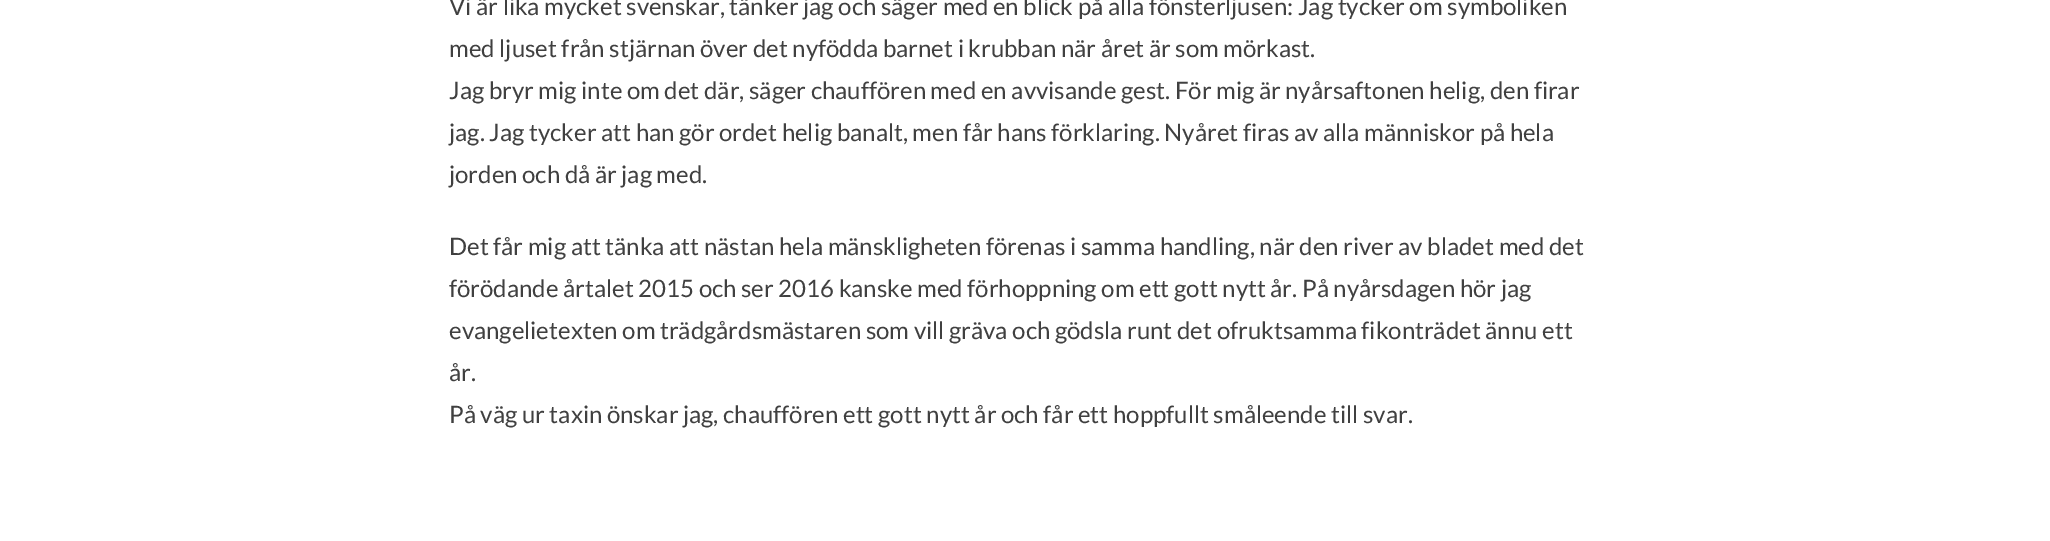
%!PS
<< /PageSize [2050 541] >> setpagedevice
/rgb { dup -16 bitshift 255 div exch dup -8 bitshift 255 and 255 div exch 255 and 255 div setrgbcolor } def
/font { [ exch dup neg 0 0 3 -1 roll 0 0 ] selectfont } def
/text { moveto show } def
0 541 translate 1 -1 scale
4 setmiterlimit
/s1 { /Lato-Regular 24 font 16#404040 rgb } def
16#FFFFFF rgb
0 0 2050 541 rectfill
s1
(Vi är lika mycket svenskar, tänker jag och säger med en blick på alla fönsterljusen: Jag tycker om symboliken) 449 15 text
(med ljuset från stjärnan över det nyfödda barnet i krubban när året är som mörkast.) 449 57 text
(Jag bryr mig inte om det där, säger chauffören med en avvisande gest. För mig är nyårsaftonen helig, den firar) 449 99 text
(jag. Jag tycker att han gör ordet helig banalt, men får hans förklaring. Nyåret firas av alla människor på hela) 449 141 text
(jorden och då är jag med.) 449 183 text
(Det får mig att tänka att nästan hela mänskligheten förenas i samma handling, när den river av bladet med det) 449 255 text
(förödande årtalet 2015 och ser 2016 kanske med förhoppning om ett gott nytt år. På nyårsdagen hör jag) 449 297 text
(evangelietexten om trädgårdsmästaren som vill gräva och gödsla runt det ofruktsamma fikonträdet ännu ett) 449 339 text
(år.) 449 381 text
(På väg ur taxin önskar jag, chauffören ett gott nytt år och får ett hoppfullt småleende till svar.) 449 423 text
showpage
